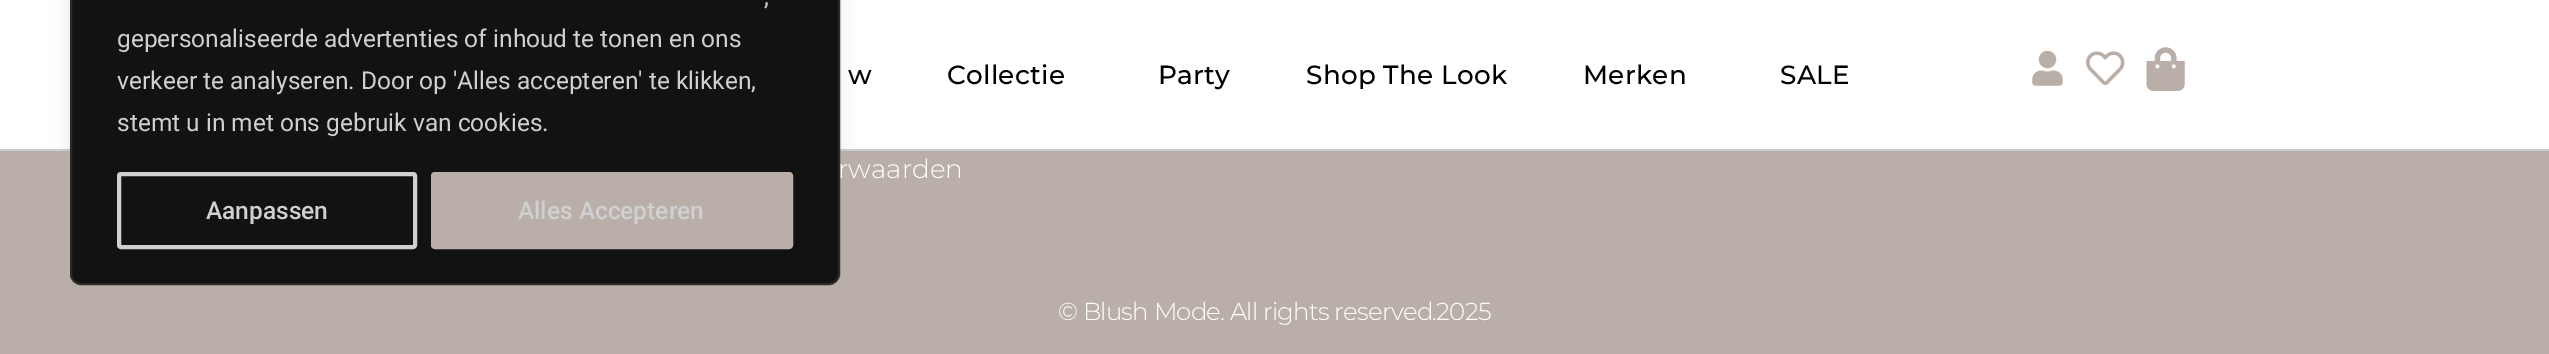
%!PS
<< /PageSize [2549 354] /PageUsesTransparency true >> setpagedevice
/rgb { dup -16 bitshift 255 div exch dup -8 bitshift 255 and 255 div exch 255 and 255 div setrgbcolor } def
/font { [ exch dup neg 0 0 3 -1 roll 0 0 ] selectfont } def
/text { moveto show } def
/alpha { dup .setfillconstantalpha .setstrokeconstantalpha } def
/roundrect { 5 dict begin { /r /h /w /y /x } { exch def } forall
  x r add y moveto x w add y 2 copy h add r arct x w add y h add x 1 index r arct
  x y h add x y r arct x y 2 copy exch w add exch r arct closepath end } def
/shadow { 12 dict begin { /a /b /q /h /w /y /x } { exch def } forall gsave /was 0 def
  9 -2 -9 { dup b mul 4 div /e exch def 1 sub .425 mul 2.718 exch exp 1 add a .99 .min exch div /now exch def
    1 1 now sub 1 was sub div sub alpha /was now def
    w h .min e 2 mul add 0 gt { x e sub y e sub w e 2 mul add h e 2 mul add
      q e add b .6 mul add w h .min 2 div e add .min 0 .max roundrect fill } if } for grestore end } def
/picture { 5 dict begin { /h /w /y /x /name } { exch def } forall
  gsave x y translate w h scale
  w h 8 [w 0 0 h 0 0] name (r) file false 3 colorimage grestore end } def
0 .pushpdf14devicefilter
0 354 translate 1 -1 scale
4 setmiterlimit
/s1 { /Roboto-Regular 24.5 font 16#D0D0D0 rgb } def
/s2 { /Roboto-Medium 24.5 font 16#D0D0D0 rgb } def
/s3 { /Montserrat-Light 26.25 font 16#FFFFFF rgb } def
16#BAAFA8 rgb
0 0 2549 354 rectfill
16#FFFFFF rgb
0 0 2549 149 rectfill
16#CCCCCC rgb
0 149 2549 2 rectfill
16#ACABAB rgb
70 -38 770 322 11 9 0.3 shadow
16#121212 rgb
71 -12 768 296 10 roundrect gsave fill grestore
16#2A2A2A rgb
2 setlinewidth
stroke
s1
(,) 764 5 text
(gepersonaliseerde advertenties of inhoud te tonen en ons) 117 47 text
(verkeer te analyseren. Door op 'Alles accepteren' te klikken,) 117 89 text
(stemt u in met ons gebruik van cookies.) 117 131 text
4 setlinewidth
119 174 296 73 2 roundrect stroke
s2
(Aanpassen) 206 219 text
16#BAAFA8 rgb
433 174 358 73 2 roundrect gsave fill grestore
stroke
s2
(Alles Accepteren) 518 219 text
/Montserrat-Medium 26.25 font
16#000000 rgb
848 84 moveto 0.3 0 (w) ashow
947 84 moveto 0.3 0 (Collectie) ashow
1158 84 moveto 0.3 0 (Party) ashow
1306 84 moveto 0.3 0 (Shop The Look) ashow
1583 84 moveto 0.3 0 (Merken) ashow
1780 84 moveto 0.3 0 (SALE) ashow
(pic1.raw) 2032 51 31 35 picture
(pic2.raw) 2086 51 39 35 picture
(pic3.raw) 2146 47 39 44 picture
s3
(rwaarden) 838 178 text
/Montserrat-Light 24.5 font
1058 320 moveto -0.8 0 (© Blush Mode. All rights reserved.2025) ashow
.poppdf14devicefilter showpage
